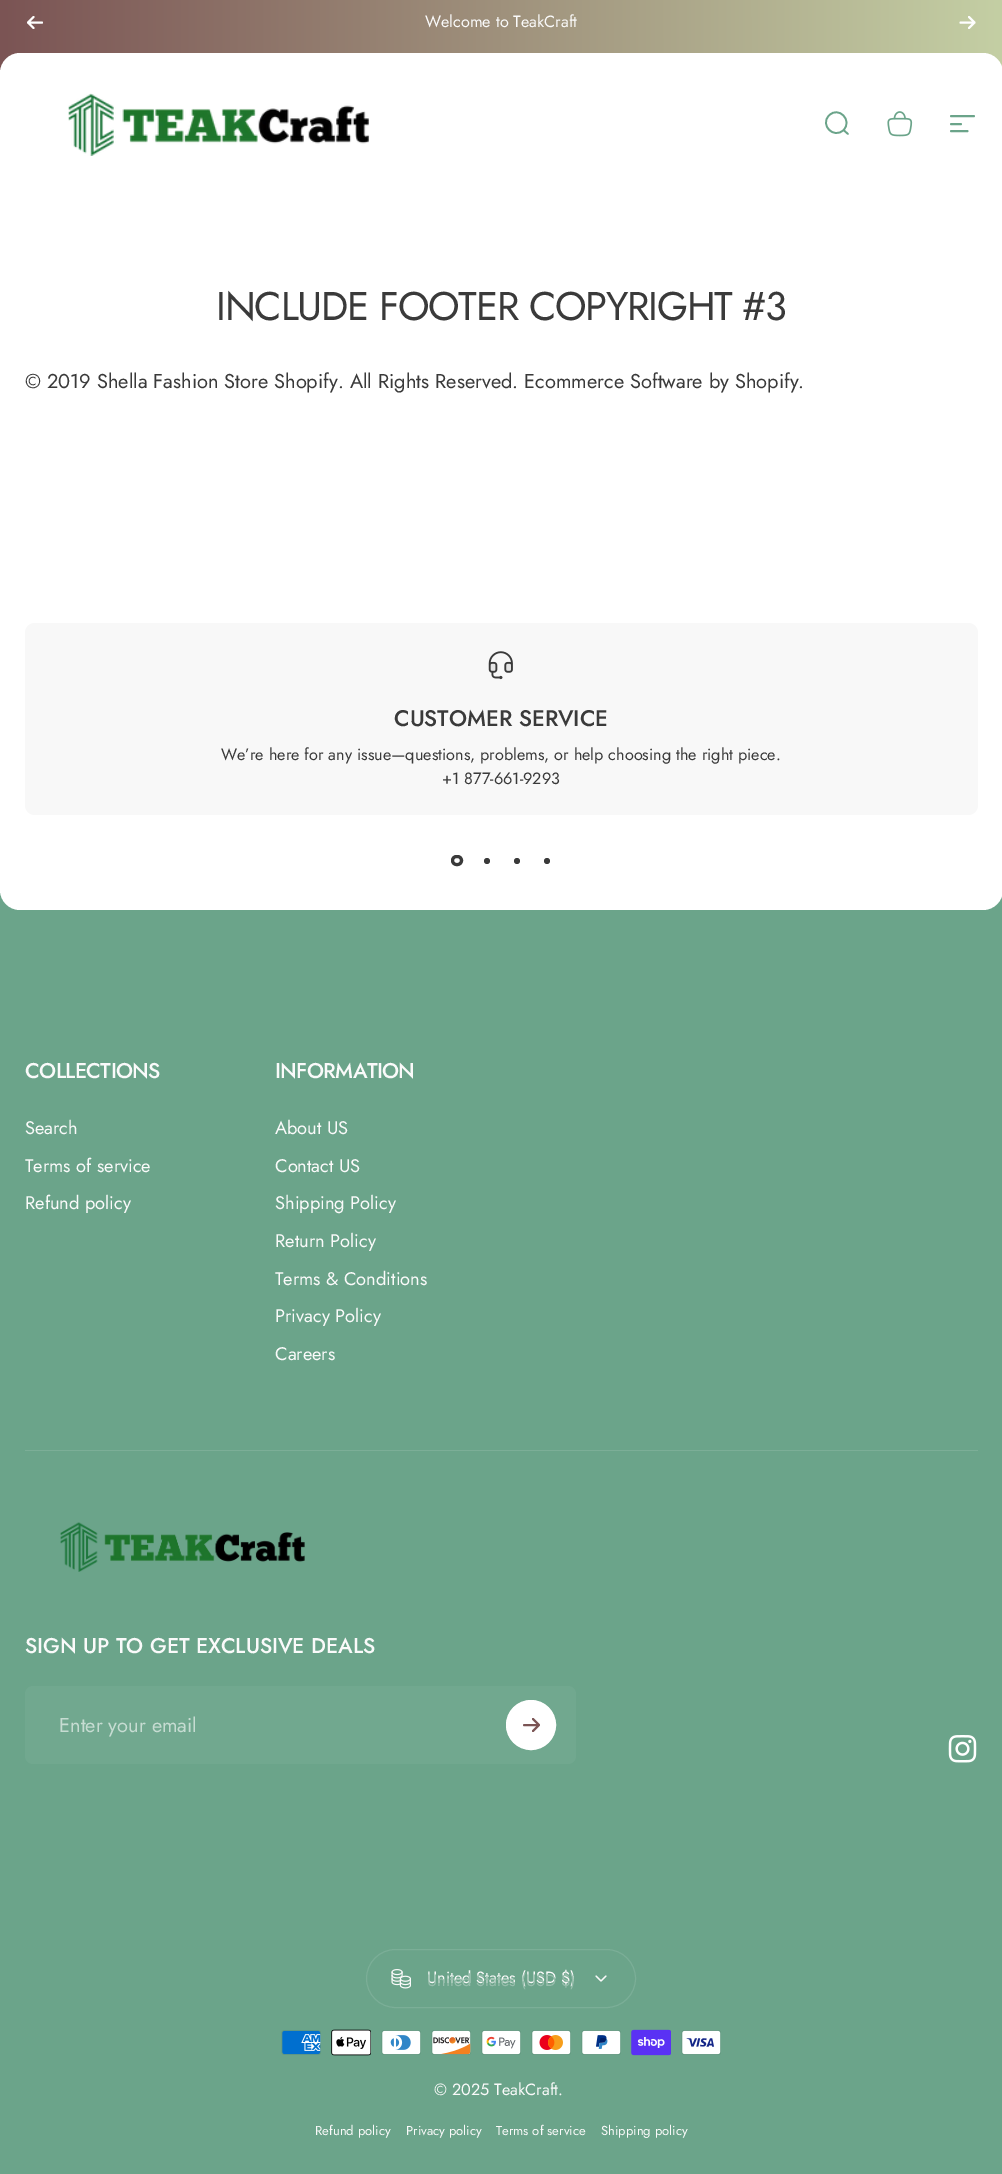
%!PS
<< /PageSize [1002 2174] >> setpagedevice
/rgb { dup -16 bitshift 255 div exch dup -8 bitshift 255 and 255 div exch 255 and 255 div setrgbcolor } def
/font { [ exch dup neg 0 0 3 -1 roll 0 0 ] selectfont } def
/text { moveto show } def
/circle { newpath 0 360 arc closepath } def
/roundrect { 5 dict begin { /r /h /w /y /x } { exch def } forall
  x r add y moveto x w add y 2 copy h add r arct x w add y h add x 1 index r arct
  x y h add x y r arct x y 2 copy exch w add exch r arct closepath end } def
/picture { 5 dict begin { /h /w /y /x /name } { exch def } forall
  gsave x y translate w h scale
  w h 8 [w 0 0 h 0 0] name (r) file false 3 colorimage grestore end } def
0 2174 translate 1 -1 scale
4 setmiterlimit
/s1 { /Jost-Regular 16.25 font 16#FAFAFA rgb } def
/s2 { /Jost-Regular 20 font 16#3A3A3A rgb } def
/s3 { /Jost-Medium 22.5 font 16#3A3A3A rgb } def
/s4 { /Jost-Regular 16.25 font 16#3A3A3A rgb } def
/s5 { /Jost-Regular 18.25 font 16#FAFAFA rgb } def
/s6 { /Jost-Medium 21.25 font 16#FAFAFA rgb } def
/s7 { /Jost-Regular 20 font 16#C6DCD2 rgb } def
/s8 { /Jost-Regular 16.25 font 16#97BEAC rgb } def
/s9 { /Jost-Regular 13 font 16#FAFAFA rgb } def
16#FFFFFF rgb
0 0 1002 2174 rectfill
gsave 0 0 moveto 1002 0 lineto 1002 13 lineto 0 13 lineto closepath clip newpath
<< /ShadingType 2 /ColorSpace /DeviceRGB /Coords [0 23 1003 22] /Extend [true true] /Function << /FunctionType 2 /Domain [0 1] /C0 [0.482 0.329 0.329] /C1 [0.769 0.812 0.643] /N 1 >> >> shfill grestore
gsave 20 -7 moveto 983 -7 lineto 994 -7 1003 2 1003 13 curveto 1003 73 lineto 0 73 lineto 0 13 lineto 0 2 9 -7 20 -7 curveto closepath clip newpath
<< /ShadingType 2 /ColorSpace /DeviceRGB /Coords [0 33 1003 32] /Extend [true true] /Function << /FunctionType 2 /Domain [0 1] /C0 [0.482 0.329 0.329] /C1 [0.769 0.812 0.643] /N 1 >> >> shfill grestore
2 setlinewidth
1 setlinecap
1 setlinejoin
33.5 17 moveto 28 22.5 lineto 28 22.5 moveto 33.5 28 lineto 28 22.5 moveto 42 22.5 lineto stroke
s1
(Welcome to TeakCraft) 425 27 text
16#FFFFFF rgb
960.5 22.5 moveto 974.5 22.5 lineto 974.5 22.5 moveto 969 17 lineto 974.5 22.5 moveto 969 28 lineto stroke
20 53 moveto 983 53 lineto 994 53 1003 62 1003 73 curveto 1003 196 lineto 0 196 lineto 0 73 lineto 0 62 9 53 20 53 curveto closepath fill
(pic1.raw) 68 93 302 63 picture
16#6BA48A rgb
1.7 setlinewidth
0 setlinejoin
848 134 moveto 843.5 130 lineto 843.5 130 moveto 853 120.5 838.5 105.5 829 115.5 curveto 819.5 125 834 139.5 843.5 130 curveto closepath stroke
(pic2.raw) 887 111 26 26 picture
1.9 setlinewidth
951 116 moveto 974 116 lineto 951 124 moveto 961 124 lineto 951 131 moveto 967.5 131 lineto stroke
/Jost-Regular 40 font
16#3A3A3A rgb
216 320 moveto -1.2 0 (INCLUDE FOOTER COPYRIGHT #3) ashow
s2
(© 2019 Shella Fashion Store Shopify. All Rights Reserved. Ecommerce Software by Shopify.) 25 388 text
16#6BA48A rgb
0 1894 1002 280 rectfill
0 890 moveto 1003 890 lineto 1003 1894 lineto 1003 1905 994 1914 983 1914 curveto 20 1914 lineto 9 1914 0 1905 0 1894 curveto closepath fill
16#FFFFFF rgb
0 548 moveto 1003 548 lineto 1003 890 lineto 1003 901 994 910 983 910 curveto 20 910 lineto 9 910 0 901 0 890 curveto closepath fill
16#F8F8F8 rgb
25 623 953 192 10 roundrect fill
(pic3.raw) 488 651 25 29 picture
s3
(CUSTOMER SERVICE) 394 726 text
s4
(We’re here for any issue—questions, problems, or help choosing the right piece.) 221 760 text
(+1 877-661-9293) 442 784 text
3 setlinewidth
0 setlinecap
452.5 856.5 9 8 4 roundrect stroke
487 861 3 circle fill
517 861 3 circle fill
547 861 3 circle fill
/Jost-Medium 21.25 font
16#FAFAFA rgb
25 1078 moveto -0.6 0 (COLLECTIONS) ashow
s5
(Search) 25 1134 text
(Terms of service) 25 1172 text
(Refund policy) 25 1209 text
/Jost-Medium 21.25 font
275 1078 moveto -0.6 0 (INFORMATION) ashow
s5
(About US) 275 1134 text
(Contact US) 275 1172 text
(Shipping Policy) 275 1209 text
(Return Policy) 275 1247 text
(Terms & Conditions) 275 1285 text
(Privacy Policy) 275 1322 text
(Careers) 275 1360 text
16#7CAE97 rgb
25 1450 953 1 rectfill
(pic4.raw) 60 1522 245 50 picture
s6
(SIGN UP TO GET EXCLUSIVE DEALS) 25 1653 text
16#71A88F rgb
25 1686 551 78 8 roundrect fill
s7
(Enter your email) 59 1732 text
16#FFFFFF rgb
531 1725 24.5 circle gsave fill grestore
1 setlinewidth
stroke
16#7B5454 rgb
1.9 setlinewidth
1 setlinecap
1 setlinejoin
524 1725 moveto 539 1725 lineto 539 1725 moveto 533 1719 lineto 539 1725 moveto 533 1731 lineto stroke
(pic5.raw) 948 1735 29 28 picture
16#7BAE97 rgb
1 setlinewidth
0 setlinecap
0 setlinejoin
366.5 1949.5 269 58 29 roundrect stroke
(pic6.raw) 391 1969 20 20 picture
s1
(United States \(USD $\)) 427 1983 text
s8
(United States \(USD $\)) 427 1986 text
16#FAFAFA rgb
1.2 setlinewidth
1 setlinecap
1 setlinejoin
596 1976 moveto 601 1981 lineto 606 1976 lineto stroke
(pic7.raw) 281 2030 40 25 picture
(pic8.raw) 331 2029 40 27 picture
(pic9.raw) 381 2030 40 25 picture
(pic10.raw) 431 2030 40 25 picture
(pic11.raw) 481 2030 40 25 picture
(pic12.raw) 531 2030 40 25 picture
(pic13.raw) 581 2030 40 25 picture
(pic14.raw) 631 2029 40 27 picture
(pic15.raw) 681 2030 40 25 picture
(© 2025 TeakCraft.) 434 2095 text
s9
(Refund policy) 315 2135 text
(Privacy policy) 406 2135 text
(Terms of service) 496 2135 text
(Shipping policy) 601 2135 text
showpage
